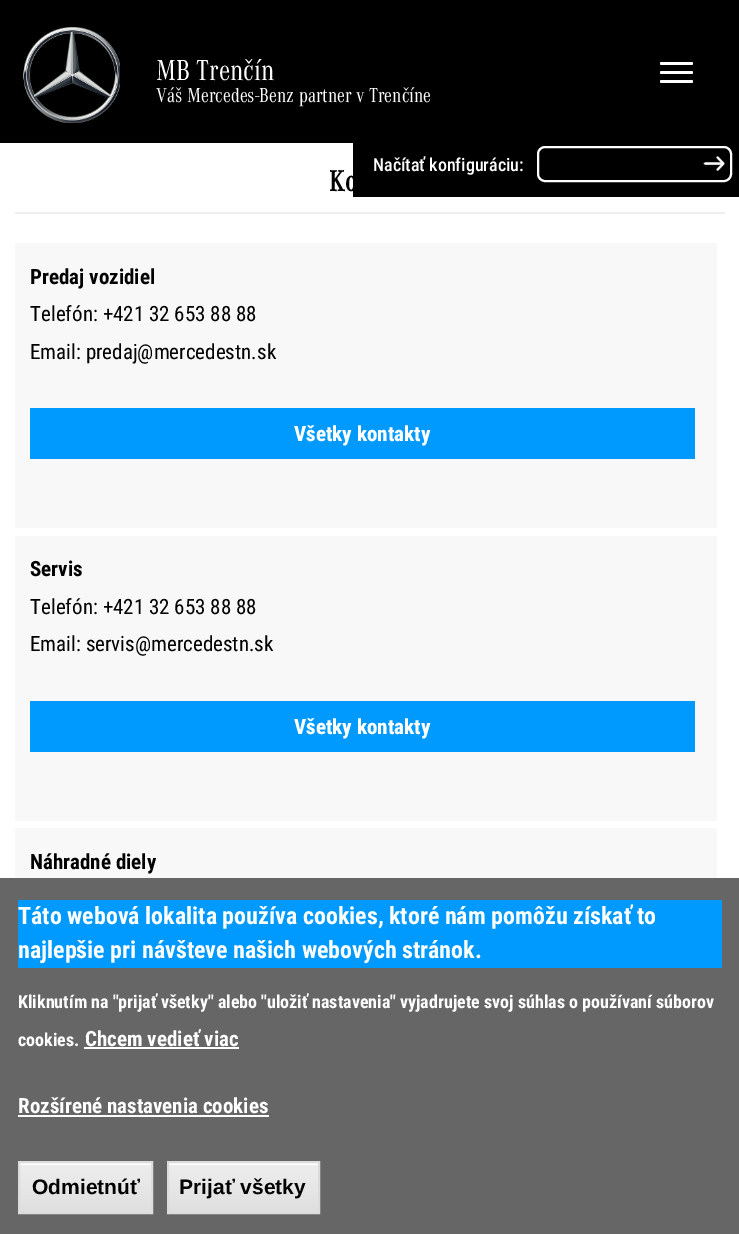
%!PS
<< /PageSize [739 1234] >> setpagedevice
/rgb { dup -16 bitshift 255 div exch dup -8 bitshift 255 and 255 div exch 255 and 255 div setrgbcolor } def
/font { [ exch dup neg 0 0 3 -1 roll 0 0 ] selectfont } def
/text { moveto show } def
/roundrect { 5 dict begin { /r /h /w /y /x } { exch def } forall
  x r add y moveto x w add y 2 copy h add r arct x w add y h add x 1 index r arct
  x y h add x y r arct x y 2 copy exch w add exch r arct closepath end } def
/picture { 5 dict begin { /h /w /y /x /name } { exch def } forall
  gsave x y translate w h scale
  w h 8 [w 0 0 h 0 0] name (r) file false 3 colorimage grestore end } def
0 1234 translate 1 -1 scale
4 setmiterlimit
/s1 { /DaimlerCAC-Regular 30 font 16#FFFFFF rgb } def
/s2 { /DaimlerCAC-Regular 21 font 16#FFFFFF rgb } def
/s3 { /RobotoCondensed-Medium 18 font 16#FFFFFF rgb } def
/s4 { /DaimlerCAC-Bold 30 font 16#000000 rgb } def
/s5 { /RobotoCondensed-Bold 21 font 16#000000 rgb } def
/s6 { /RobotoCondensed-Regular 21 font 16#000000 rgb } def
/s7 { /RobotoCondensed-ExtraBold 21 font 16#FFFFFF rgb } def
/s8 { /RobotoCondensed-Bold 24 font 16#FFFFFF rgb } def
/s9 { /RobotoCondensed-Bold 18 font 16#FFFFFF rgb } def
/s10 { /RobotoCondensed-Bold 21 font 16#FFFFFF rgb } def
/s11 { /LiberationSans-Bold 21 font 16#000000 rgb } def
16#FFFFFF rgb
0 0 739 1234 rectfill
16#000000 rgb
0 0 739 141 rectfill
0 141 353 2 rectfill
(pic1.raw) 23 27 97 96 picture
s1
(MB Trenčín) 156 80 text
s2
(Váš Mercedes-Benz partner v Trenčíne) 156 102 text
660 62 33 3 1.5 roundrect fill
660 71 33 3 1.5 roundrect fill
660 80 33 3 1.5 roundrect fill
16#000000 rgb
353 141 386 56 rectfill
s3
(Načítať konfiguráciu:) 373 171 text
2 setlinewidth
538 147 193 34 7 roundrect stroke
(pic2.raw) 703 156 22 15 picture
16#EEEEEE rgb
15 212 710 2 rectfill
s4
(Ko) 329 191 text
16#F8F8F8 rgb
15 243 702 285 rectfill
s5
(Predaj vozidiel) 30 284 text
s6
(Telefón: +421 32 653 88 88) 30 321 text
(Email: predaj@mercedestn.sk) 30 359 text
16#009AFF rgb
30 408 665 51 rectfill
s7
(Všetky kontakty) 294 441 text
16#F8F8F8 rgb
15 536 702 285 rectfill
s5
(Servis) 30 576 text
s6
(Telefón: +421 32 653 88 88) 30 614 text
(Email: servis@mercedestn.sk) 30 651 text
16#009AFF rgb
30 701 665 51 rectfill
s7
(Všetky kontakty) 294 734 text
16#F8F8F8 rgb
15 828 702 50 rectfill
s5
(Náhradné diely) 30 869 text
16#666666 rgb
0 878 739 356 rectfill
16#009AFF rgb
18 900 704 68 rectfill
s8
(Táto webová lokalita používa cookies, ktoré nám pomôžu získať to) 18 924 text
(najlepšie pri návšteve našich webových stránok.) 18 958 text
s9
(Kliknutím na "prijať všetky" alebo "uložiť nastavenia" vyjadrujete svoj súhlas o používaní súborov) 18 1008 text
(cookies.) 18 1046 text
s10
(Chcem vedieť viac) 85 1046 text
84 1047 155 2 rectfill
(Rozšírené nastavenia cookies) 18 1113 text
18 1115 251 2 rectfill
gsave 20 1165 moveto 151 1165 lineto 151 1212 lineto 20 1212 lineto closepath clip newpath
<< /ShadingType 2 /ColorSpace /DeviceRGB /Coords [86 1163 86 1212] /Extend [true true] /Function << /FunctionType 3 /Domain [0 1] /Functions [<< /FunctionType 2 /Domain [0 1] /C0 [0.929 0.929 0.929] /C1 [0.929 0.929 0.929] /N 1 >> << /FunctionType 2 /Domain [0 1] /C0 [0.929 0.929 0.929] /C1 [0.875 0.875 0.875] /N 1 >>] /Bounds [0.05] /Encode [0 1 0 1] >> >> shfill grestore
20 1163 132 2 rectfill
16#DCDCDC rgb
19 1162 133 51 rectstroke
s11
(Odmietnúť) 32 1194 text
gsave 169 1165 moveto 318 1165 lineto 318 1212 lineto 169 1212 lineto closepath clip newpath
<< /ShadingType 2 /ColorSpace /DeviceRGB /Coords [243 1163 243 1212] /Extend [true true] /Function << /FunctionType 3 /Domain [0 1] /Functions [<< /FunctionType 2 /Domain [0 1] /C0 [0.929 0.929 0.929] /C1 [0.929 0.929 0.929] /N 1 >> << /FunctionType 2 /Domain [0 1] /C0 [0.929 0.929 0.929] /C1 [0.875 0.875 0.875] /N 1 >>] /Bounds [0.05] /Encode [0 1 0 1] >> >> shfill grestore
16#FFFFFF rgb
168 1163 150 2 rectfill
16#DCDCDC rgb
168 1162 151 51 rectstroke
s11
(Prijať všetky) 179 1194 text
showpage
